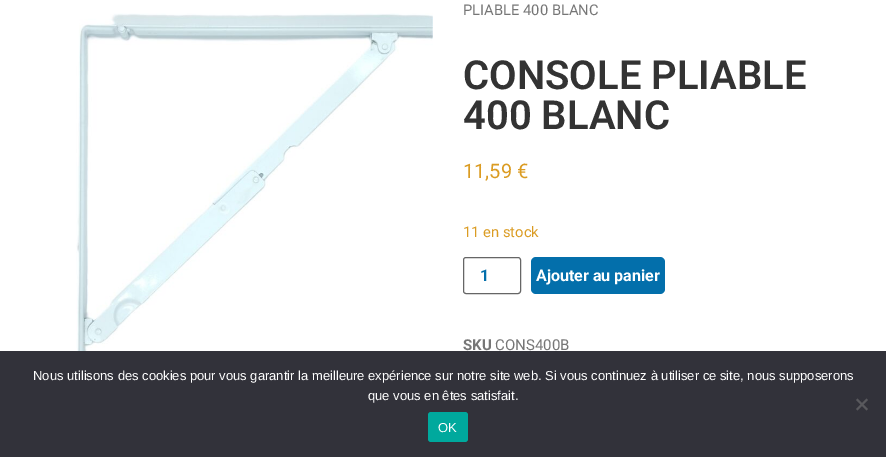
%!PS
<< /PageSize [886 457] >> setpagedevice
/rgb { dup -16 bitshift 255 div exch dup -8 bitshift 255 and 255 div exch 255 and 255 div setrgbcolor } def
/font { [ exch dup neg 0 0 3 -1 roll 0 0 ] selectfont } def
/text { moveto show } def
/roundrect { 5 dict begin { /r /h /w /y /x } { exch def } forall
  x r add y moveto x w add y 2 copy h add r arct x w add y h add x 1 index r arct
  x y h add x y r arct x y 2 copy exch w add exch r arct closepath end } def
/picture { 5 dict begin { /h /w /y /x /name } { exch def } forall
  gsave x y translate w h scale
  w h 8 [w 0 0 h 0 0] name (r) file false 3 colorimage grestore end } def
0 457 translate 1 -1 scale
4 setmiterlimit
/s1 { /Roboto-Regular 14.75 font 16#767676 rgb } def
/s2 { /Roboto-SemiBold 40 font 16#333333 rgb } def
/s3 { /Roboto-Regular 20 font 16#DB9C23 rgb } def
/s4 { /Roboto-Regular 14.75 font 16#DB9C23 rgb } def
/s5 { /Roboto-SemiBold 16 font 16#036FAB rgb } def
/s6 { /Roboto-Bold 16 font 16#FFFFFF rgb } def
/s7 { /Roboto-Bold 15 font 16#767676 rgb } def
/s8 { /Roboto-Regular 15 font 16#767676 rgb } def
/s9 { /LiberationSans-Regular 13 font 16#FFFFFF rgb } def
16#FFFFFF rgb
0 0 886 457 rectfill
(pic1.raw) 76 13 357 338 picture
s1
(PLIABLE 400 BLANC) 463 15 text
s2
(CONSOLE PLIABLE) 463 89 text
(400 BLANC) 463 129 text
s3
(11,59 €) 463 178 text
s4
(11 en stock) 463 237 text
16#666666 rgb
463.5 257.5 57 36 2.5 roundrect stroke
s5
(1) 480 281 text
531 257 134 37 5 roundrect fill
s6
(Ajouter au panier) 536 281 text
s7
(SKU) 463 350 text
s8
(CONS400B) 495 350 text
16#32323A rgb
0 351 886 106 rectfill
s9
(Nous utilisons des cookies pour vous garantir la meilleure expérience sur notre site web. Si vous continuez à utiliser ce site, nous supposerons) 33 380 text
(que vous en êtes satisfait.) 368 400 text
16#59595D rgb
866.5 398.5 moveto 868 400 lineto 857.5 410.5 lineto 856 409 lineto closepath fill
856 400 moveto 857.5 398.5 lineto 868 409 lineto 866.5 410.5 lineto closepath fill
16#00A99D rgb
428 412 40 30 3 roundrect fill
s9
(OK) 438 432 text
showpage
